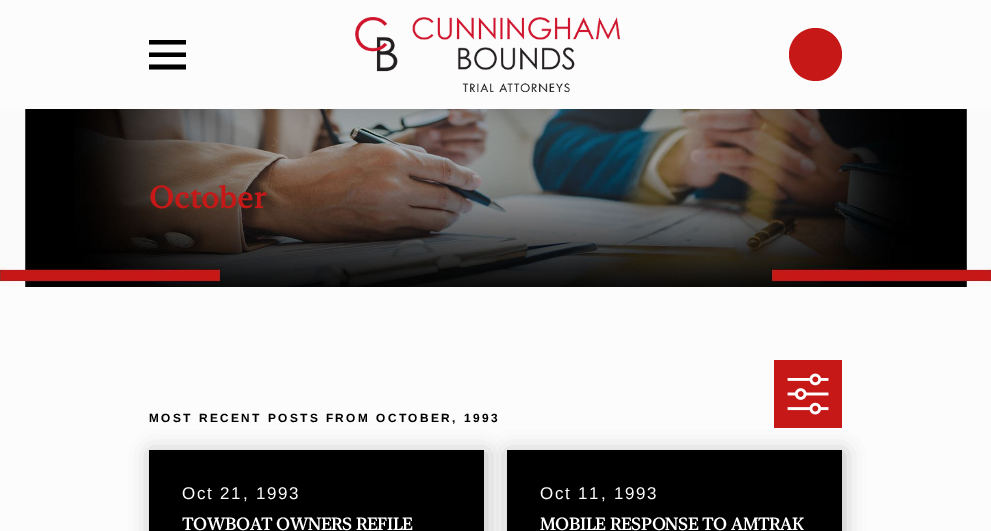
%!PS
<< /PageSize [991 531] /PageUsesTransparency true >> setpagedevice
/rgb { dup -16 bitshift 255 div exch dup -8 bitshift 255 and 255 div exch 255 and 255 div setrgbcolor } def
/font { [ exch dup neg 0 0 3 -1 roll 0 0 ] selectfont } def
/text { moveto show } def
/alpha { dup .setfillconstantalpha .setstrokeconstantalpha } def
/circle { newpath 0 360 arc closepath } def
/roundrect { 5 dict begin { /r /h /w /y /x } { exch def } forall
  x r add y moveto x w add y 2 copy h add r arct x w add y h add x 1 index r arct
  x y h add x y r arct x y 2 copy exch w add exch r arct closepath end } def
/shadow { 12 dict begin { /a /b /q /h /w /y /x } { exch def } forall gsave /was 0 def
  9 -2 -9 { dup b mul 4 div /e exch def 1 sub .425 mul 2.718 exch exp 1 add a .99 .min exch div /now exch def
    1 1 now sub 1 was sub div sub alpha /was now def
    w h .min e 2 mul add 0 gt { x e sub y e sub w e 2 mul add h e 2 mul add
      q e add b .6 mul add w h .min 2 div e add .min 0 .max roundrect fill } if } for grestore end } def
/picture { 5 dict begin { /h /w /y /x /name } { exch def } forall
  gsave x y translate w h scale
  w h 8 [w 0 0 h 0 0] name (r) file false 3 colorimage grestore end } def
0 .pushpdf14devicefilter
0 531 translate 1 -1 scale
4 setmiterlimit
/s1 { /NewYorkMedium-Bold 17 font 16#FFFFFF rgb } def
16#FCFCFC rgb
0 0 991 531 rectfill
gsave
149 36 37 37 rectclip
16#000000 rgb
149 40 moveto 149 44.5 lineto 186.5 44.5 lineto 186.5 40 lineto closepath 149 52.5 moveto 149 57 lineto 186.5 57 lineto 186.5 52.5 lineto closepath 149 64.5 moveto 149 69.5 lineto 186.5 69.5 lineto 186.5 64.5 lineto closepath fill
grestore
(pic1.raw) 355 17 265 75 picture
16#C71818 rgb
815.5 54.5 26.5 circle fill
(pic2.raw) 0 109 991 178 picture
/NewYorkMedium-Bold 30.5 font
149 208 moveto 0.5 0 (October) ashow
/LiberationSans-Bold 11.9 font
16#000000 rgb
149 422 moveto 2.4 0 (MOST RECENT POSTS FROM OCTOBER, 1993) ashow
16#C71818 rgb
774 360 68 68 rectfill
(pic3.raw) 787 373 42 42 picture
16#000000 rgb
151 452 335 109 0 10 0.25 shadow
149 450 335 81 rectfill
/LiberationSans-Regular 17 font
16#FFFFFF rgb
182 499 moveto 1.75 0 (Oct 21, 1993) ashow
s1
(TOWBOAT OWNERS REFILE) 182 530 text
16#000000 rgb
509 452 335 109 0 10 0.25 shadow
507 450 335 81 rectfill
/LiberationSans-Regular 17 font
16#FFFFFF rgb
540 499 moveto 1.75 0 (Oct 11, 1993) ashow
s1
(MOBILE RESPONSE TO AMTRAK) 540 530 text
.poppdf14devicefilter showpage
